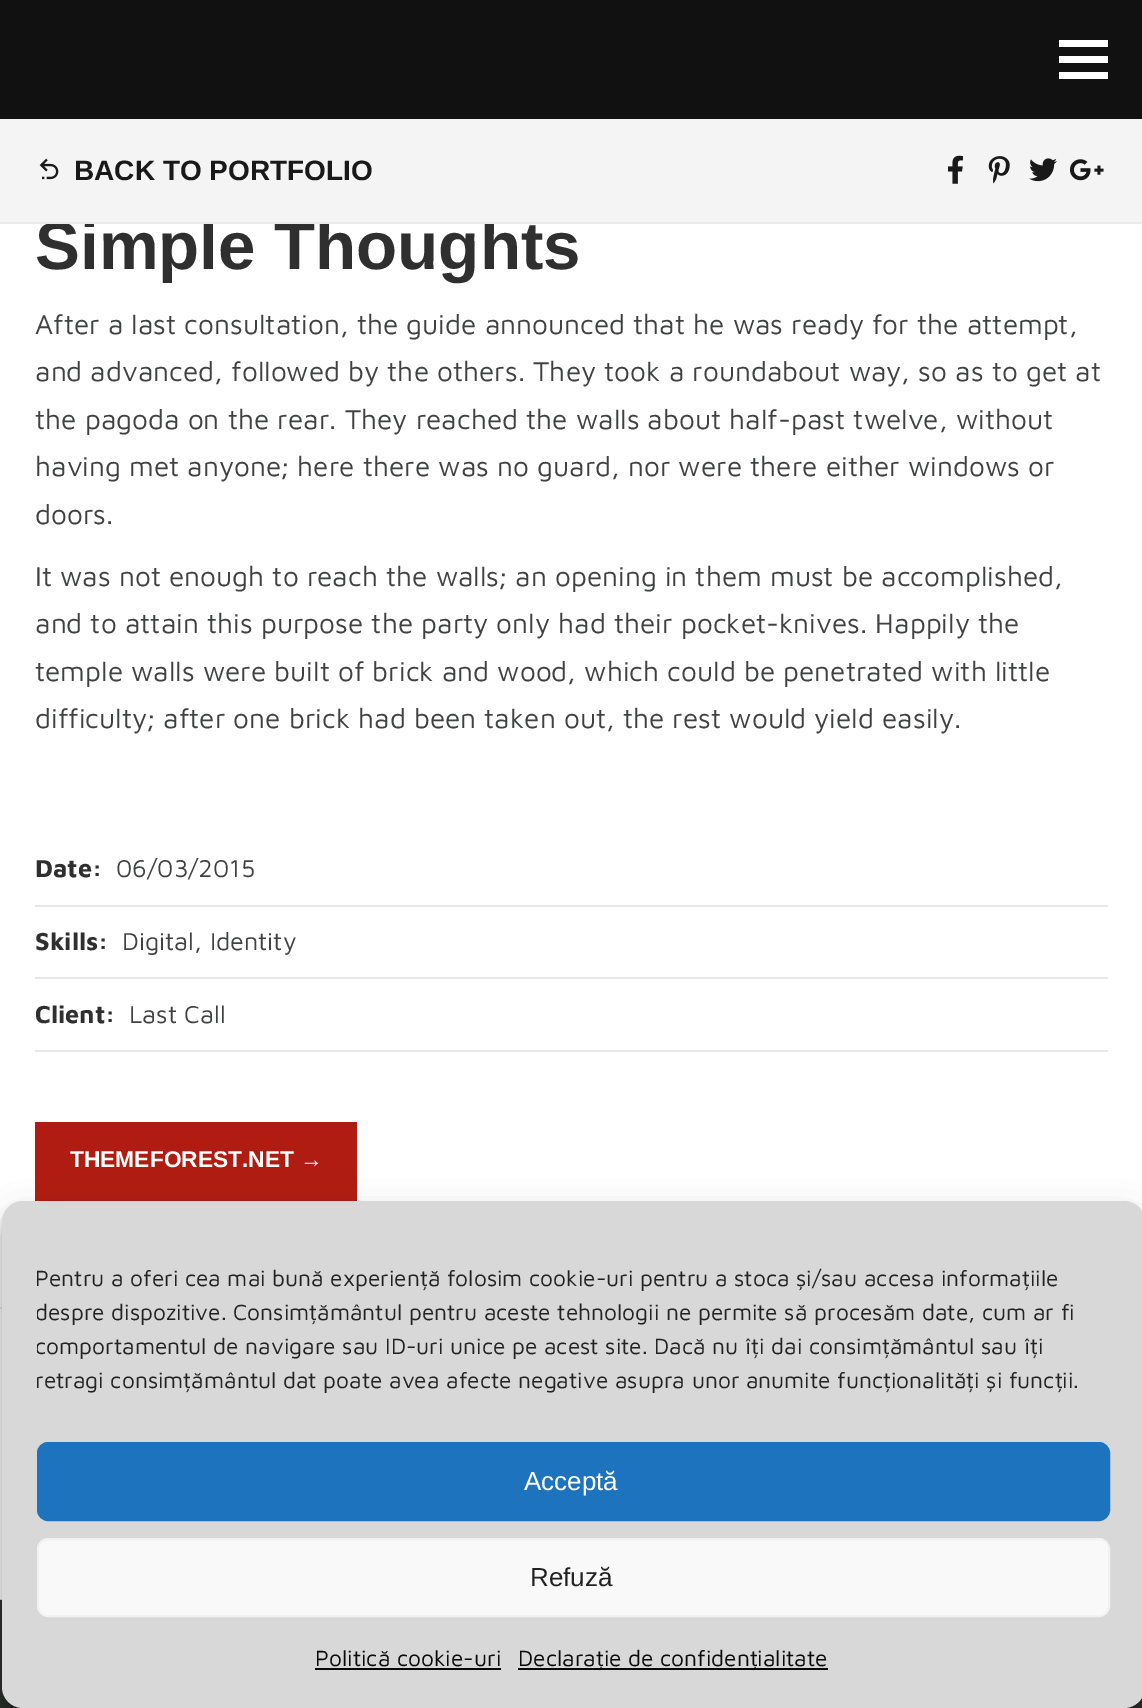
%!PS
<< /PageSize [1142 1708] /PageUsesTransparency true >> setpagedevice
/rgb { dup -16 bitshift 255 div exch dup -8 bitshift 255 and 255 div exch 255 and 255 div setrgbcolor } def
/font { [ exch dup neg 0 0 3 -1 roll 0 0 ] selectfont } def
/text { moveto show } def
/alpha { dup .setfillconstantalpha .setstrokeconstantalpha } def
/roundrect { 5 dict begin { /r /h /w /y /x } { exch def } forall
  x r add y moveto x w add y 2 copy h add r arct x w add y h add x 1 index r arct
  x y h add x y r arct x y 2 copy exch w add exch r arct closepath end } def
/shadow { 12 dict begin { /a /b /q /h /w /y /x } { exch def } forall gsave /was 0 def
  9 -2 -9 { dup b mul 4 div /e exch def 1 sub .425 mul 2.718 exch exp 1 add a .99 .min exch div /now exch def
    1 1 now sub 1 was sub div sub alpha /was now def
    w h .min e 2 mul add 0 gt { x e sub y e sub w e 2 mul add h e 2 mul add
      q e add b .6 mul add w h .min 2 div e add .min 0 .max roundrect fill } if } for grestore end } def
/picture { 5 dict begin { /h /w /y /x /name } { exch def } forall
  gsave x y translate w h scale
  w h 8 [w 0 0 h 0 0] name (r) file false 3 colorimage grestore end } def
0 .pushpdf14devicefilter
0 1708 translate 1 -1 scale
4 setmiterlimit
/s1 { /LiberationSans-Bold 67.25 font 16#2F2F2F rgb } def
/s2 { /LiberationSans-Bold 28 font 16#191919 rgb } def
/s3 { /MavenPro-Regular 28 font 16#404142 rgb } def
/s4 { /MavenPro-Bold 25.25 font 16#2F2F2F rgb } def
/s5 { /MavenPro-Regular 25.25 font 16#404142 rgb } def
/s6 { /LiberationSans-Bold 22.75 font 16#FFFFFF rgb } def
/s7 { /MavenPro-Regular 22.75 font 16#222222 rgb } def
/s8 { /LiberationSans-Regular 26 font 16#FFFFFF rgb } def
/s9 { /LiberationSans-Regular 26 font 16#222222 rgb } def
/s10 { /MavenPro-Regular 22.75 font 16#0A0A0A rgb } def
16#FFFFFF rgb
0 0 1142 1708 rectfill
16#111111 rgb
0 0 1142 119 rectfill
16#FFFFFF rgb
1059 40 49 7 rectfill
1059 56 49 7 rectfill
1059 72 49 7 rectfill
s1
(Simple Thoughts) 35 269 text
16#F4F4F4 rgb
0 119 1142 103 rectfill
16#EAEAEA rgb
0 222 1142 2 rectfill
(pic1.raw) 39 158 20 22 picture
s2
(BACK TO PORTFOLIO) 74 180 text
(pic2.raw) 948 155 15 29 picture
(pic3.raw) 988 156 22 28 picture
(pic4.raw) 1029 158 28 24 picture
(pic5.raw) 1070 159 34 22 picture
s3
(After a last consultation, the guide announced that he was ready for the attempt,) 35 334 text
(and advanced, followed by the others. They took a roundabout way, so as to get at) 35 381 text
(the pagoda on the rear. They reached the walls about half-past twelve, without) 35 429 text
(having met anyone; here there was no guard, nor were there either windows or) 35 476 text
(doors.) 35 524 text
(It was not enough to reach the walls; an opening in them must be accomplished,) 35 586 text
(and to attain this purpose the party only had their pocket-knives. Happily the) 35 633 text
(temple walls were built of brick and wood, which could be penetrated with little) 35 681 text
(difficulty; after one brick had been taken out, the rest would yield easily.) 35 728 text
s4
(Date:) 35 877 text
s5
(06/03/2015) 116 877 text
16#E8E8E8 rgb
35 905 1073 2 rectfill
s4
(Skills:) 35 950 text
s5
(Digital, Identity) 122 950 text
16#E8E8E8 rgb
35 977 1073 2 rectfill
s4
(Client:) 35 1023 text
s5
(Last Call) 129 1023 text
16#E8E8E8 rgb
35 1050 1073 2 rectfill
16#B01C12 rgb
35 1122 322 79 rectfill
s6
(THEMEFOREST.NET →) 70 1167 text
16#E8E8E8 rgb
0 1307 2 2 rectfill
(pic6.raw) 0 1599 23 109 picture
(pic7.raw) 1124 1697 18 11 picture
16#000000 rgb
2 1211 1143 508 21 5 0.23 shadow
2 1218 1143 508 21 17.5 0.19 shadow
16#D8D8D8 rgb
2 1201 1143 507 21 roundrect fill
gsave
37 1262 1073 145 rectclip
s7
(Pentru a oferi cea mai bună experiență folosim cookie-uri pentru a stoca și/sau accesa informațiile) 35 1286 text
(despre dispozitive. Consimțământul pentru aceste tehnologii ne permite să procesăm date, cum ar fi) 35 1320 text
(comportamentul de navigare sau ID-uri unice pe acest site. Dacă nu îți dai consimțământul sau îți) 35 1354 text
(retragi consimțământul dat poate avea afecte negative asupra unor anumite funcționalități și funcții.) 35 1388 text
grestore
16#1E73BE rgb
38 1443 1071 77 10 roundrect gsave fill grestore
2 setlinewidth
stroke
s8
(Acceptă) 524 1490 text
16#F9F9F9 rgb
38 1539 1071 77 10 roundrect gsave fill grestore
16#F2F2F2 rgb
stroke
s9
(Refuză) 530 1586 text
s10
(Politică cookie-uri) 315 1666 text
315 1668 186 2 rectfill
518 1668 310 2 rectfill
(Declarație de confidențialitate) 518 1666 text
.poppdf14devicefilter showpage
